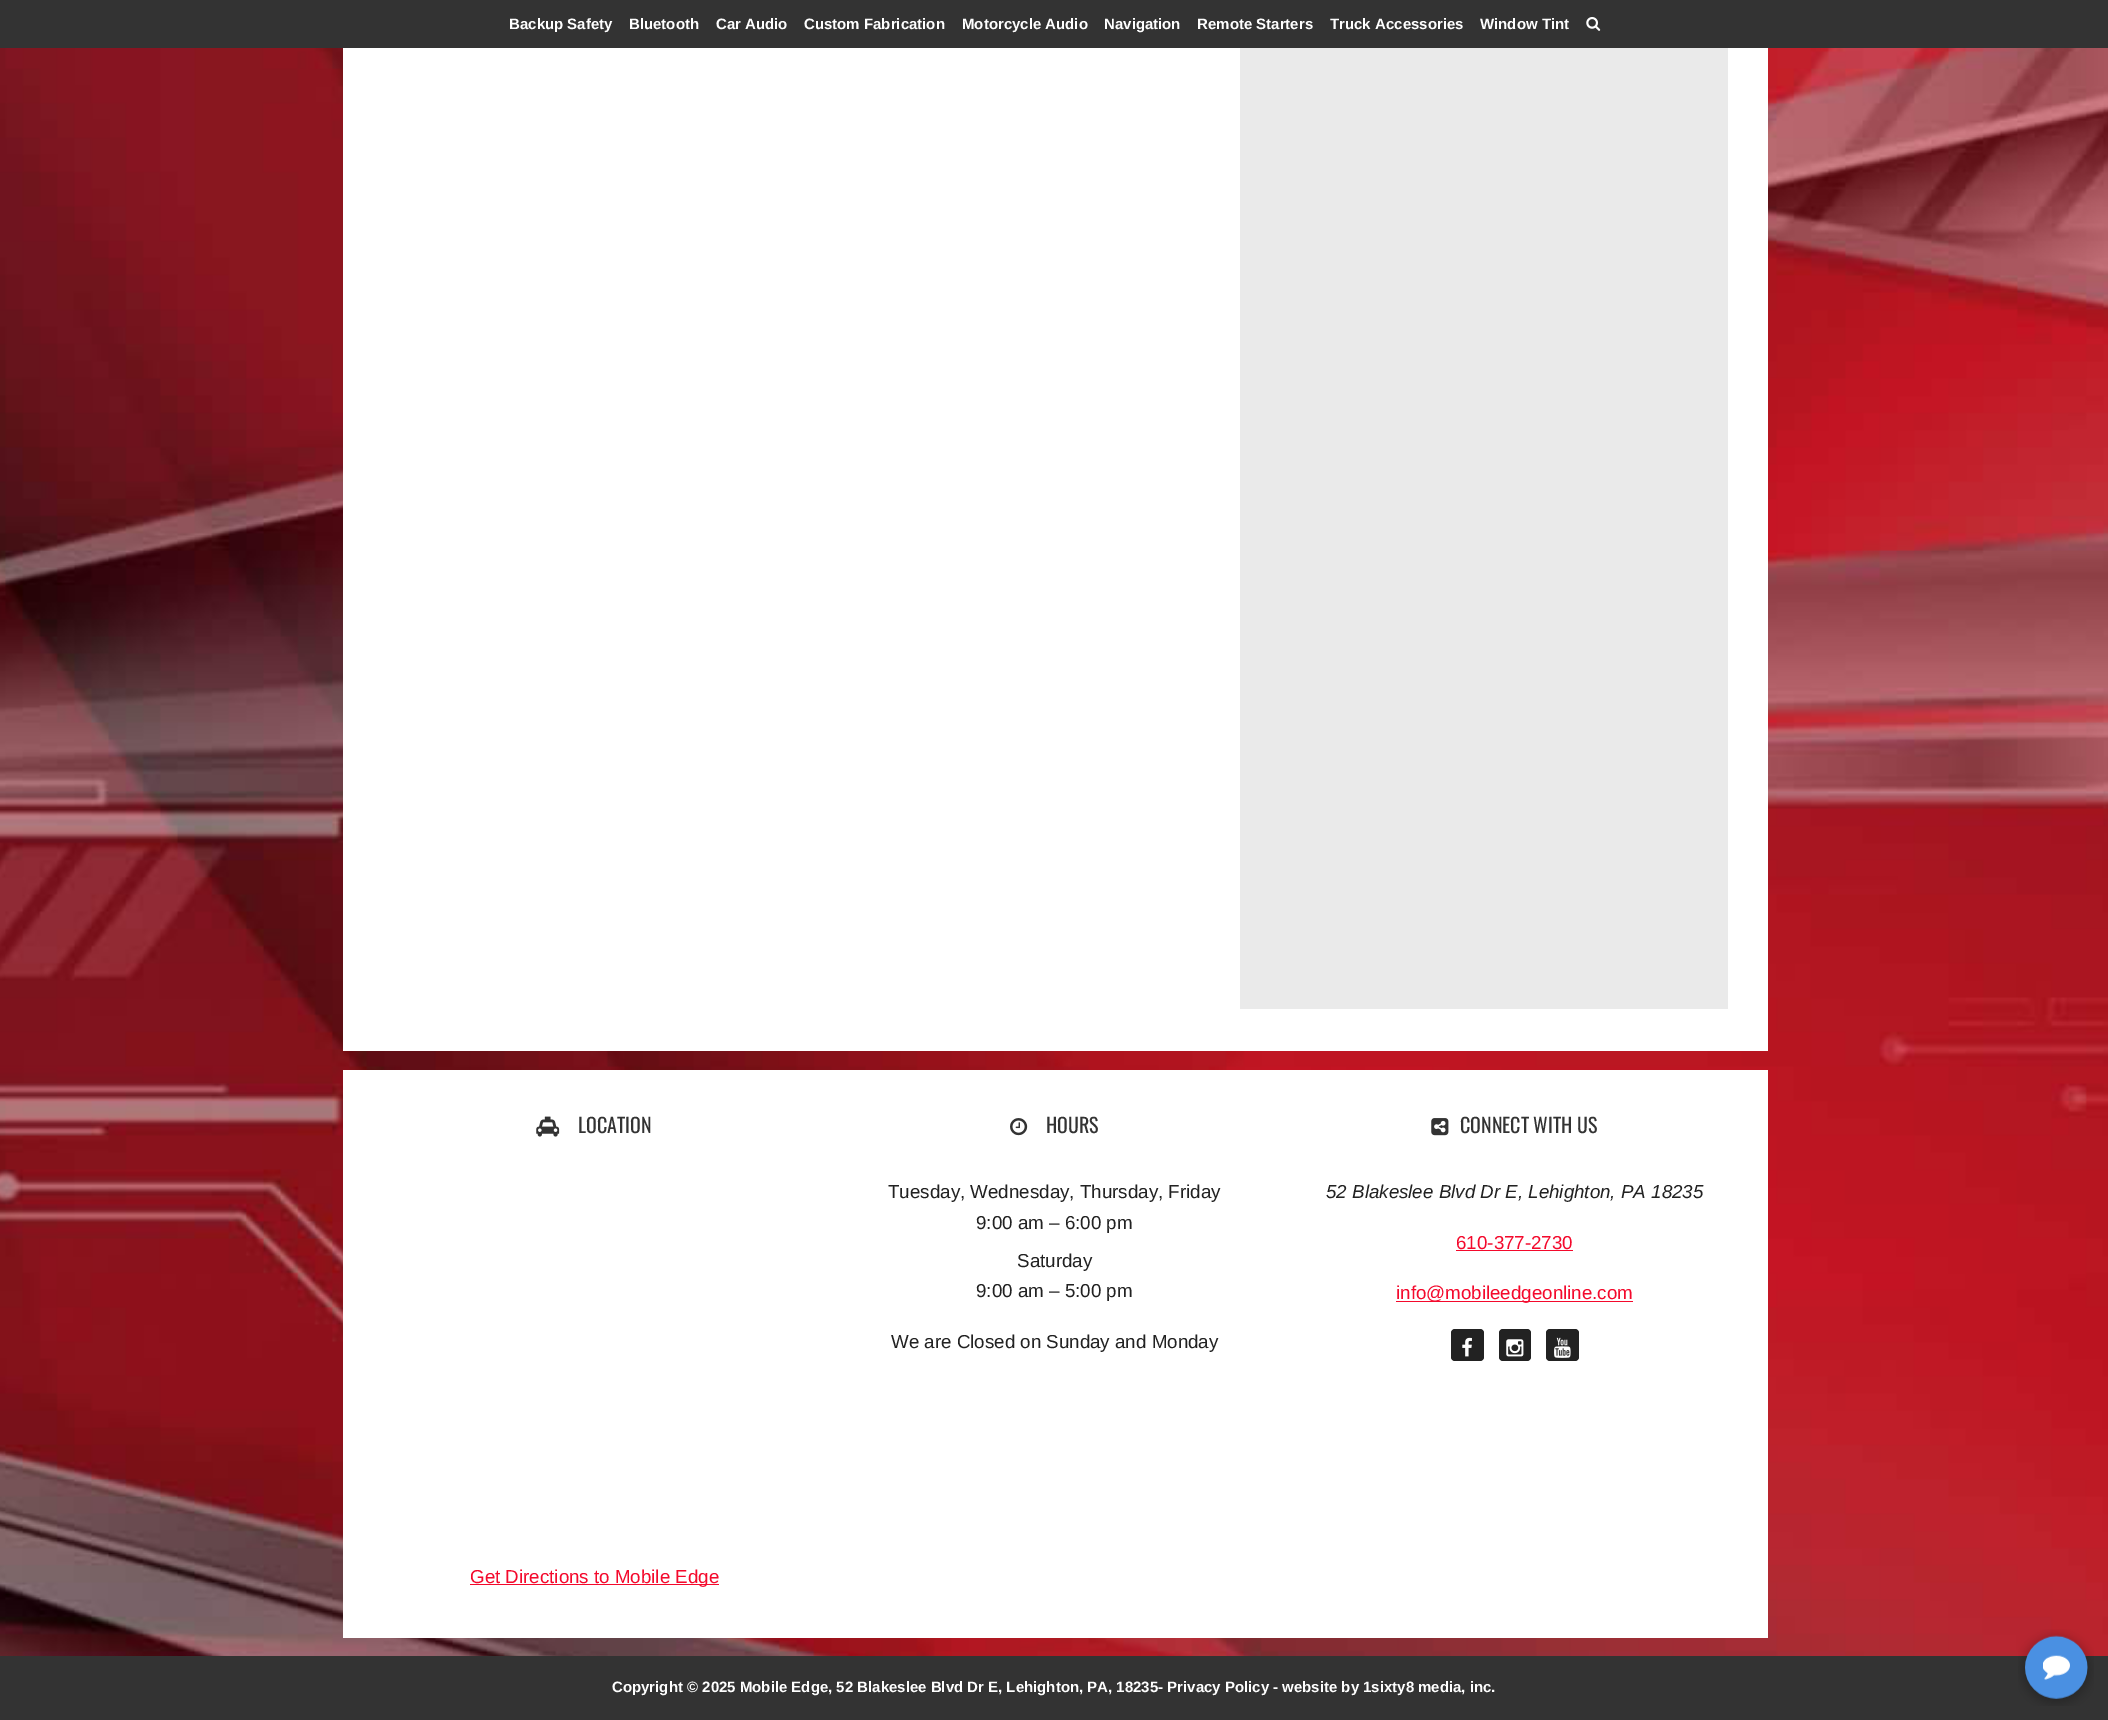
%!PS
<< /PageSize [2108 1720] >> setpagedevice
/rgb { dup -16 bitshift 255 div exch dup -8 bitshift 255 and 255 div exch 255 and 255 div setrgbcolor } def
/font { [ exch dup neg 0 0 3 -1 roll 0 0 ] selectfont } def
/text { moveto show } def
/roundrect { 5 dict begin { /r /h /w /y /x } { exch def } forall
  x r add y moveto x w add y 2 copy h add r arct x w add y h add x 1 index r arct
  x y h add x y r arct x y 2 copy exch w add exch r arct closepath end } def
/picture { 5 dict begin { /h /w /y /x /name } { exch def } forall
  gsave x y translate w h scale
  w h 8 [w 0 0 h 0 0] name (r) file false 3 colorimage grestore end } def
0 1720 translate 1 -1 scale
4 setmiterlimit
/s1 { /LiberationSans-Bold 15 font 16#FFFFFF rgb } def
/s2 { /Oswald-Regular 20 font 16#333333 rgb } def
/s3 { /LiberationSans-Regular 18.75 font 16#F4092C rgb } def
/s4 { /LiberationSans-Regular 18.75 font 16#222222 rgb } def
/s5 { /LiberationSans-Italic 18.75 font 16#222222 rgb } def
16#FFFFFF rgb
0 0 2108 1720 rectfill
16#333333 rgb
0 0 2108 48 rectfill
s1
(Backup Safety) 509 29 text
(Bluetooth) 629 29 text
(Car Audio) 716 29 text
(Custom Fabrication) 804 29 text
(Motorcycle Audio) 962 29 text
(Navigation) 1104 29 text
(Remote Starters) 1197 29 text
(Truck Accessories) 1330 29 text
(Window Tint) 1480 29 text
(pic1.raw) 1586 17 15 14 picture
(pic2.raw) 0 48 2108 1608 picture
343 48 1425 1003 rectfill
16#EAEAEA rgb
1240 48 488 961 rectfill
16#FFFFFF rgb
343 1070 1425 568 rectfill
(pic3.raw) 536 1116 24 21 picture
s2
(LOCATION) 578 1133 text
16#F4092C rgb
470 1584 249 1 rectfill
s3
(Get Directions to Mobile Edge) 470 1583 text
(pic4.raw) 1010 1118 18 18 picture
s2
(HOURS) 1046 1133 text
s4
(Tuesday, Wednesday, Thursday, Friday) 888 1198 text
(9:00 am – 6:00 pm) 976 1229 text
(Saturday) 1017 1267 text
(9:00 am – 5:00 pm) 976 1297 text
(We are Closed on Sunday and Monday) 891 1348 text
(pic5.raw) 1431 1118 18 18 picture
s2
(CONNECT WITH US) 1460 1133 text
s5
(52 Blakeslee Blvd Dr E, Lehighton, PA 18235) 1326 1198 text
s3
(610-377-2730) 1456 1249 text
1456 1250 117 1 rectfill
1396 1301 237 1 rectfill
(info@mobileedgeonline.com) 1396 1299 text
16#222222 rgb
1451 1329 33 32 4 roundrect fill
(pic6.raw) 1462 1337 10 20 picture
1499 1329 32 32 4 roundrect fill
(pic7.raw) 1506 1339 18 18 picture
1546 1329 33 32 4 roundrect fill
(pic8.raw) 1554 1337 17 21 picture
16#333333 rgb
0 1656 2108 64 rectfill
s1
(Copyright © 2025 Mobile Edge, 52 Blakeslee Blvd Dr E, Lehighton, PA, 18235- Privacy Policy - website by 1sixty8 media, inc.) 612 1692 text
(pic9.raw) 2018 1629 76 77 picture
showpage
